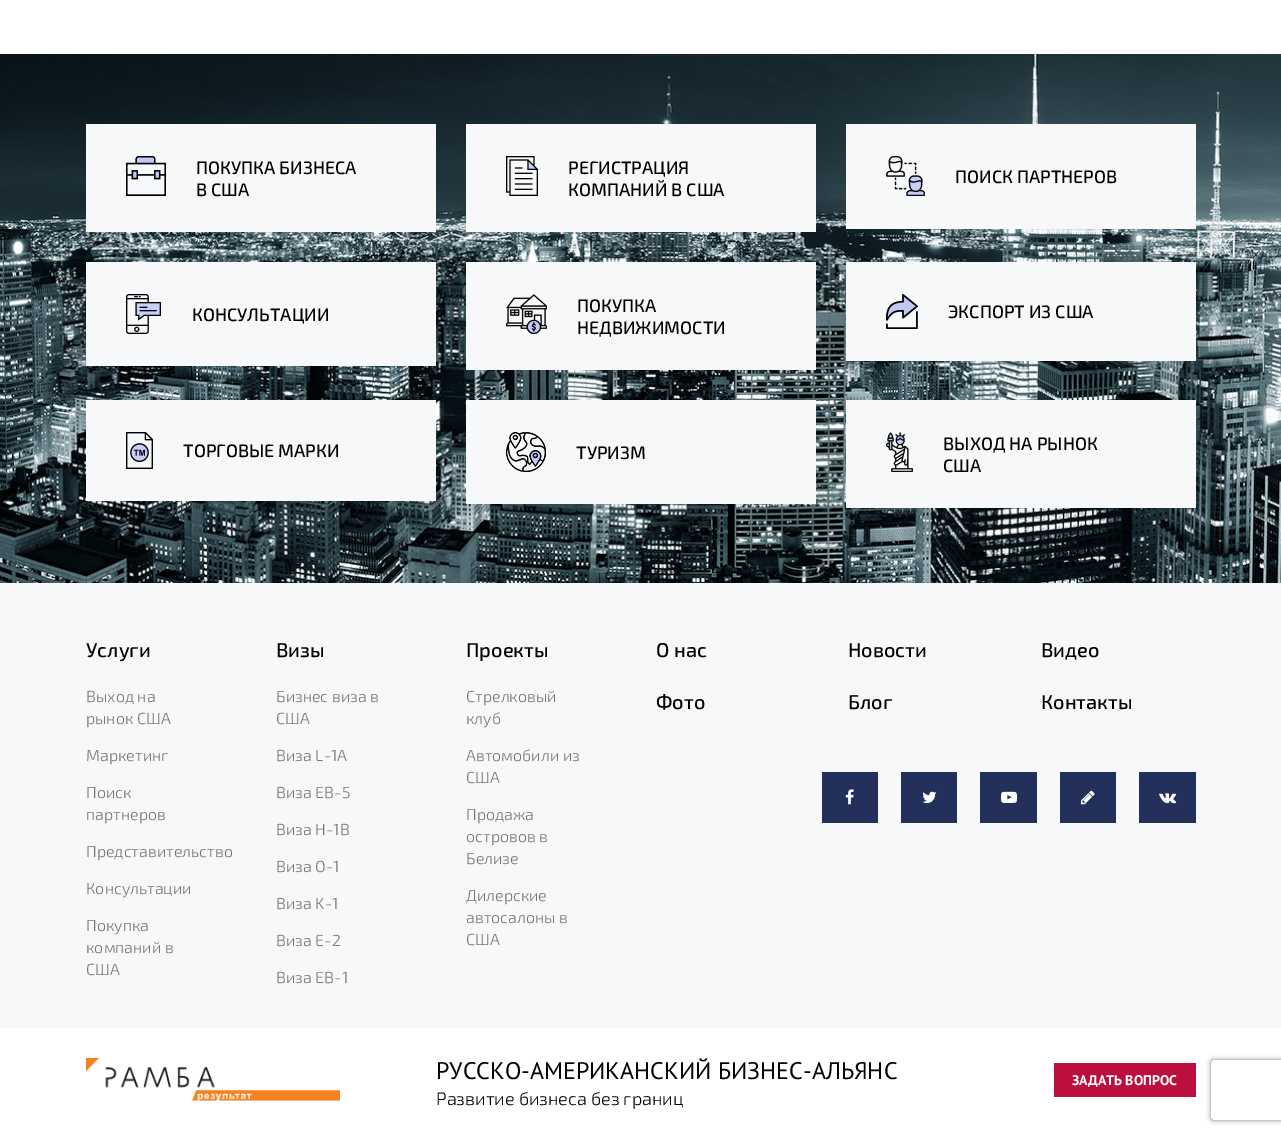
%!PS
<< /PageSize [1281 1134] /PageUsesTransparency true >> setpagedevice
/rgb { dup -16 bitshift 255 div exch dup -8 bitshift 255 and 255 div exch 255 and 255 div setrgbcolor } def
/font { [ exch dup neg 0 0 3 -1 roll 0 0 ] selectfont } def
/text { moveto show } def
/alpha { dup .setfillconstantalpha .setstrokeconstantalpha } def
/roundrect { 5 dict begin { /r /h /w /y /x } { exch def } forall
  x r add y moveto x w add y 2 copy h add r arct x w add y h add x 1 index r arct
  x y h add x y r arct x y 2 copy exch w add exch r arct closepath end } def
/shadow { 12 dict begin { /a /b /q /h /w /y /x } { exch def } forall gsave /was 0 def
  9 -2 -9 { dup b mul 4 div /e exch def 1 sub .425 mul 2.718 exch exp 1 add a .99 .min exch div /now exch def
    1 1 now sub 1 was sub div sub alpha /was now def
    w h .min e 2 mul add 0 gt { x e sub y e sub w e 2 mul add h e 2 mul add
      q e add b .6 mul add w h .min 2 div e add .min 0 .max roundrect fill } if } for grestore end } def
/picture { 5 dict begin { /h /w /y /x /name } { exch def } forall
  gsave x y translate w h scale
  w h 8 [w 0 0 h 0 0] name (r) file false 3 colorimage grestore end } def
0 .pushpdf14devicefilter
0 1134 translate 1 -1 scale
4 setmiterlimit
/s1 { /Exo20-Medium 18 font 16#010101 rgb } def
/s2 { /Exo20-Medium 20 font 16#010101 rgb } def
/s3 { /Exo20-Light 16 font 16#757575 rgb } def
/s4 { /PTSans-Regular 24 font 16#010101 rgb } def
/s5 { /Exo20-Light 18 font 16#010101 rgb } def
/s6 { /PTSans-Bold 14 font 16#FFFFFF rgb } def
16#FFFFFF rgb
0 0 1281 1134 rectfill
(pic1.raw) 0 54 1281 529 picture
16#F7F8FA rgb
86 124 350 108 rectfill
(pic2.raw) 126 156 40 40 picture
s1
(ПОКУПКА БИЗНЕСА) 196 174 text
(В США) 196 196 text
16#F7F8FA rgb
466 124 350 108 rectfill
(pic3.raw) 506 156 32 40 picture
s1
(РЕГИСТРАЦИЯ) 568 174 text
(КОМПАНИЙ В США) 568 196 text
16#F7F8FA rgb
846 124 350 105 rectfill
(pic4.raw) 886 156 39 40 picture
s1
(ПОИСК ПАРТНЕРОВ) 955 183 text
16#F7F8FA rgb
86 262 350 104 rectfill
(pic5.raw) 126 294 36 40 picture
s1
(КОНСУЛЬТАЦИИ) 192 321 text
16#F7F8FA rgb
466 262 350 108 rectfill
(pic6.raw) 506 294 41 40 picture
s1
(ПОКУПКА) 577 312 text
(НЕДВИЖИМОСТИ) 577 334 text
16#F7F8FA rgb
846 262 350 99 rectfill
(pic7.raw) 886 294 32 35 picture
s1
(ЭКСПОРТ ИЗ США) 948 318 text
16#F7F8FA rgb
86 400 350 101 rectfill
(pic8.raw) 126 432 27 37 picture
s1
(ТОРГОВЫЕ МАРКИ) 183 457 text
16#F7F8FA rgb
466 400 350 104 rectfill
(pic9.raw) 506 432 40 40 picture
s1
(ТУРИЗМ) 576 459 text
16#F7F8FA rgb
846 400 350 108 rectfill
(pic10.raw) 886 432 27 40 picture
s1
(ВЫХОД НА РЫНОК) 943 450 text
(США) 943 472 text
16#F7F8FA rgb
0 583 1281 445 rectfill
s2
(Услуги) 86 657 text
s3
(Выход на) 86 702 text
(рынок США) 86 724 text
(Маркетинг) 86 761 text
(Поиск) 86 798 text
(партнеров) 86 820 text
(Представительство) 86 857 text
(Консультации) 86 894 text
(Покупка) 86 931 text
(компаний в) 86 953 text
(США) 86 975 text
s2
(Визы) 276 657 text
s3
(Бизнес виза в) 276 702 text
(США) 276 724 text
(Виза L-1A) 276 761 text
(Виза EB-5) 276 798 text
(Виза H-1B) 276 835 text
(Виза O-1) 276 872 text
(Виза K-1) 276 909 text
(Виза E-2) 276 946 text
(Виза EB-1) 276 983 text
s2
(Проекты) 466 657 text
s3
(Стрелковый) 466 702 text
(клуб) 466 724 text
(Автомобили из) 466 761 text
(США) 466 783 text
(Продажа) 466 820 text
(островов в) 466 842 text
(Белизе) 466 864 text
(Дилерские) 466 901 text
(автосалоны в) 466 923 text
(США) 466 945 text
s2
(О нас) 656 657 text
(Новости) 848 657 text
(Видео) 1041 657 text
(Фото) 656 709 text
(Блог) 848 709 text
(Контакты) 1041 709 text
16#22305B rgb
822 772 56 51 rectfill
(pic11.raw) 845 789 9 16 picture
901 772 56 51 rectfill
(pic12.raw) 922 791 15 13 picture
980 772 57 51 rectfill
(pic13.raw) 1001 791 16 12 picture
1060 772 56 51 rectfill
(pic14.raw) 1081 790 14 15 picture
1139 772 57 51 rectfill
(pic15.raw) 1159 793 18 11 picture
(pic16.raw) 86 1058 254 43 picture
s4
(РУССКО-АМЕРИКАНСКИЙ БИЗНЕС-АЛЬЯНС) 436 1079 text
s5
(Развитие бизнеса без границ) 436 1105 text
16#BB0F3C rgb
1054 1063 142 34 rectfill
s6
(ЗАДАТЬ ВОПРОС) 1072 1085 text
gsave
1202 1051 moveto 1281 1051 lineto 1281 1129 lineto 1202 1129 lineto closepath 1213 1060 moveto 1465 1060 lineto 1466 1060 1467 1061 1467 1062 curveto 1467 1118 lineto 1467 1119 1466 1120 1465 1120 curveto 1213 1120 lineto 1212 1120 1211 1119 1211 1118 curveto 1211 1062 lineto 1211 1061 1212 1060 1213 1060 curveto closepath eoclip newpath
16#808080 rgb
1211 1060 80 60 2 2.5 1 shadow
grestore
.poppdf14devicefilter showpage
